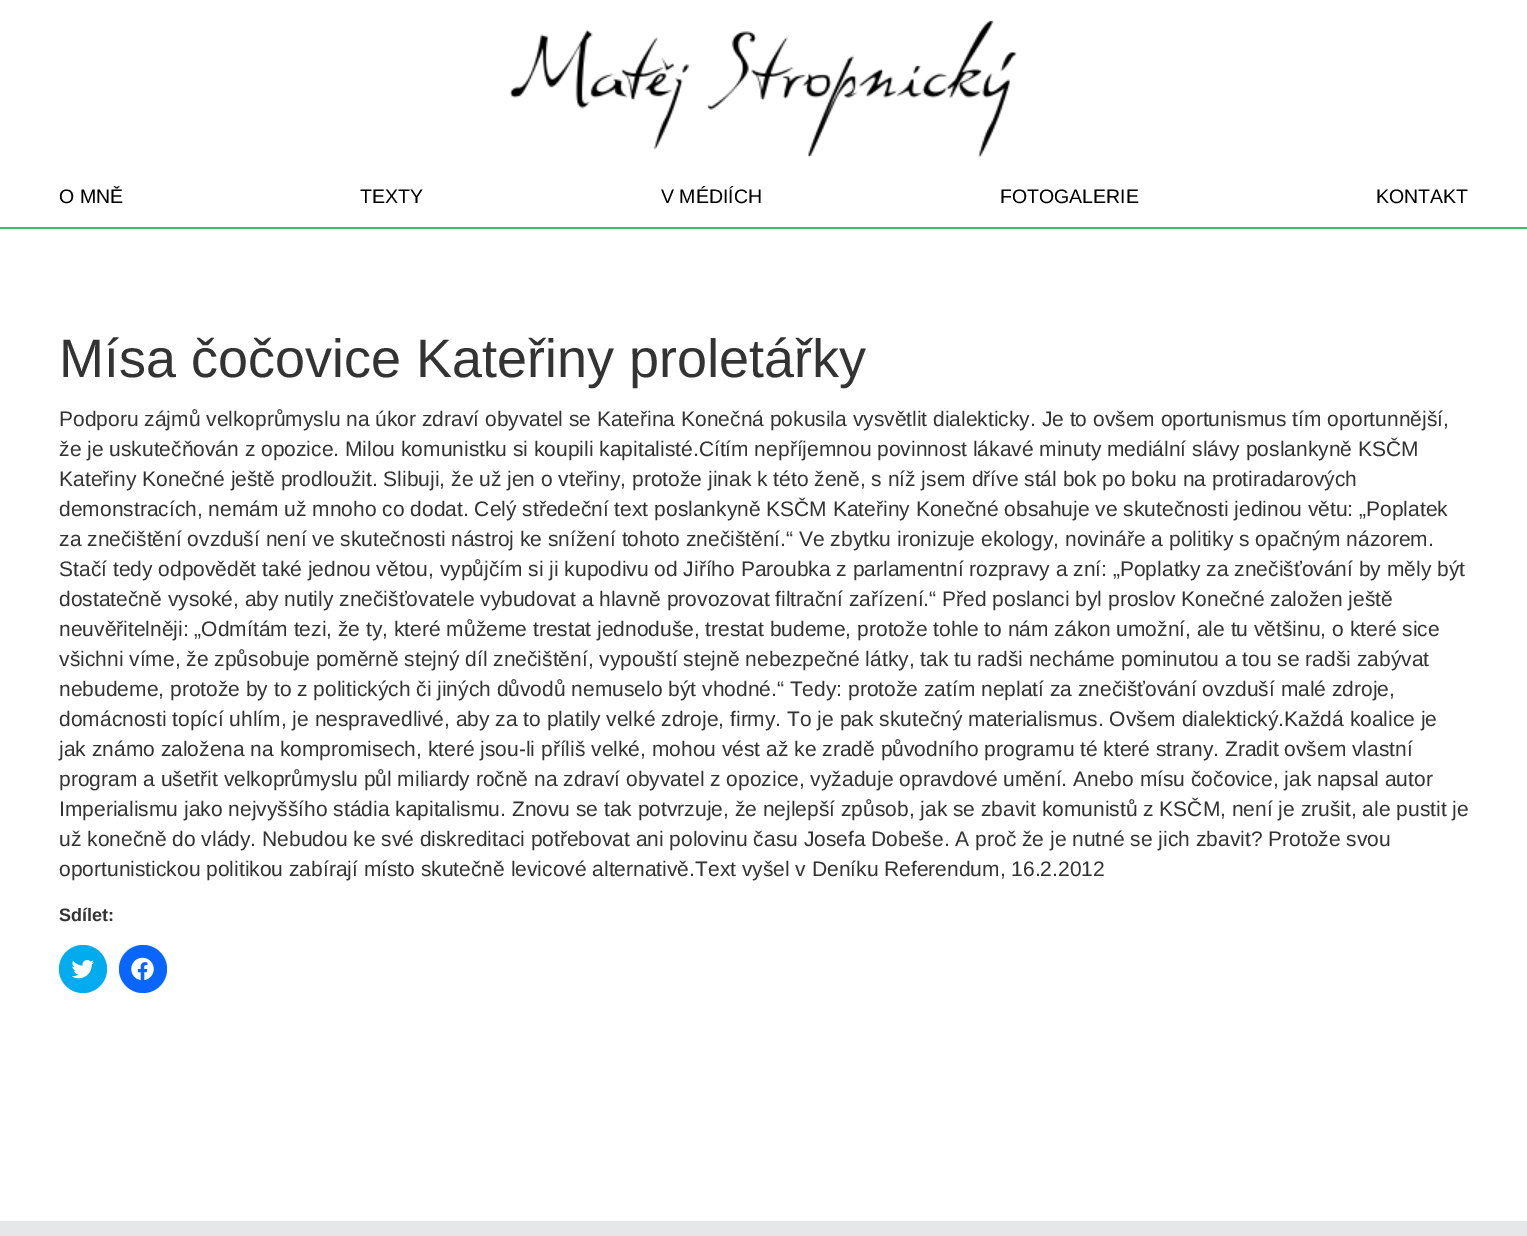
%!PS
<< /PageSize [1527 1236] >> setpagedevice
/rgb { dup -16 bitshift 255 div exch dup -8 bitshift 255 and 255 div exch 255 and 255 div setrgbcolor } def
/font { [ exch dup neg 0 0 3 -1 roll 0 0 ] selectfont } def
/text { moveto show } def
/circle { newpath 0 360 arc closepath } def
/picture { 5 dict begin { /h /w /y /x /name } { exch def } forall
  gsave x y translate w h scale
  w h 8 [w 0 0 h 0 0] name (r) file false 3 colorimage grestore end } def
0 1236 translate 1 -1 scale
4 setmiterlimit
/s1 { /LiberationSans-Regular 19.5 font 16#000000 rgb } def
/s2 { /LiberationSans-Regular 54 font 16#333333 rgb } def
/s3 { /LiberationSans-Regular 21 font 16#333333 rgb } def
/s4 { /LiberationSans-Bold 18 font 16#333333 rgb } def
16#FFFFFF rgb
0 0 1527 1236 rectfill
(pic1.raw) 509 20 508 138 picture
16#3BC06D rgb
0 227 1527 2 rectfill
s1
(O MNĚ) 59 203 text
(TEXTY) 360 203 text
(V MÉDIÍCH) 661 203 text
(FOTOGALERIE) 1000 203 text
(KONTAKT) 1376 203 text
s2
(Mísa čočovice Kateřiny proletářky) 59 377 text
s3
(Podporu zájmů velkoprůmyslu na úkor zdraví obyvatel se Kateřina Konečná pokusila vysvětlit dialekticky. Je to ovšem oportunismus tím oportunnější,) 59 426 text
(že je uskutečňován z opozice. Milou komunistku si koupili kapitalisté.Cítím nepříjemnou povinnost lákavé minuty mediální slávy poslankyně KSČM) 59 456 text
(Kateřiny Konečné ještě prodloužit. Slibuji, že už jen o vteřiny, protože jinak k této ženě, s níž jsem dříve stál bok po boku na protiradarových) 59 486 text
(demonstracích, nemám už mnoho co dodat. Celý středeční text poslankyně KSČM Kateřiny Konečné obsahuje ve skutečnosti jedinou větu: „Poplatek) 59 516 text
(za znečištění ovzduší není ve skutečnosti nástroj ke snížení tohoto znečištění.“ Ve zbytku ironizuje ekology, novináře a politiky s opačným názorem.) 59 546 text
(Stačí tedy odpovědět také jednou větou, vypůjčím si ji kupodivu od Jiřího Paroubka z parlamentní rozpravy a zní: „Poplatky za znečišťování by měly být) 59 576 text
(dostatečně vysoké, aby nutily znečišťovatele vybudovat a hlavně provozovat filtrační zařízení.“ Před poslanci byl proslov Konečné založen ještě) 59 606 text
(neuvěřitelněji: „Odmítám tezi, že ty, které můžeme trestat jednoduše, trestat budeme, protože tohle to nám zákon umožní, ale tu většinu, o které sice) 59 636 text
(všichni víme, že způsobuje poměrně stejný díl znečištění, vypouští stejně nebezpečné látky, tak tu radši necháme pominutou a tou se radši zabývat) 59 666 text
(nebudeme, protože by to z politických či jiných důvodů nemuselo být vhodné.“ Tedy: protože zatím neplatí za znečišťování ovzduší malé zdroje,) 59 696 text
(domácnosti topící uhlím, je nespravedlivé, aby za to platily velké zdroje, firmy. To je pak skutečný materialismus. Ovšem dialektický.Každá koalice je) 59 726 text
(jak známo založena na kompromisech, které jsou-li příliš velké, mohou vést až ke zradě původního programu té které strany. Zradit ovšem vlastní) 59 756 text
(program a ušetřit velkoprůmyslu půl miliardy ročně na zdraví obyvatel z opozice, vyžaduje opravdové umění. Anebo mísu čočovice, jak napsal autor) 59 786 text
(Imperialismu jako nejvyššího stádia kapitalismu. Znovu se tak potvrzuje, že nejlepší způsob, jak se zbavit komunistů z KSČM, není je zrušit, ale pustit je) 59 816 text
(už konečně do vlády. Nebudou ke své diskreditaci potřebovat ani polovinu času Josefa Dobeše. A proč že je nutné se jich zbavit? Protože svou) 59 846 text
(oportunistickou politikou zabírají místo skutečně levicové alternativě.Text vyšel v Deníku Referendum, 16.2.2012) 59 876 text
s4
(Sdílet:) 59 921 text
16#00ACEE rgb
83 969 24 circle fill
(pic2.raw) 71 960 23 19 picture
16#0866FF rgb
143 969 24 circle fill
(pic3.raw) 131 957 23 24 picture
16#E6E7E8 rgb
0 1221 1527 15 rectfill
showpage
